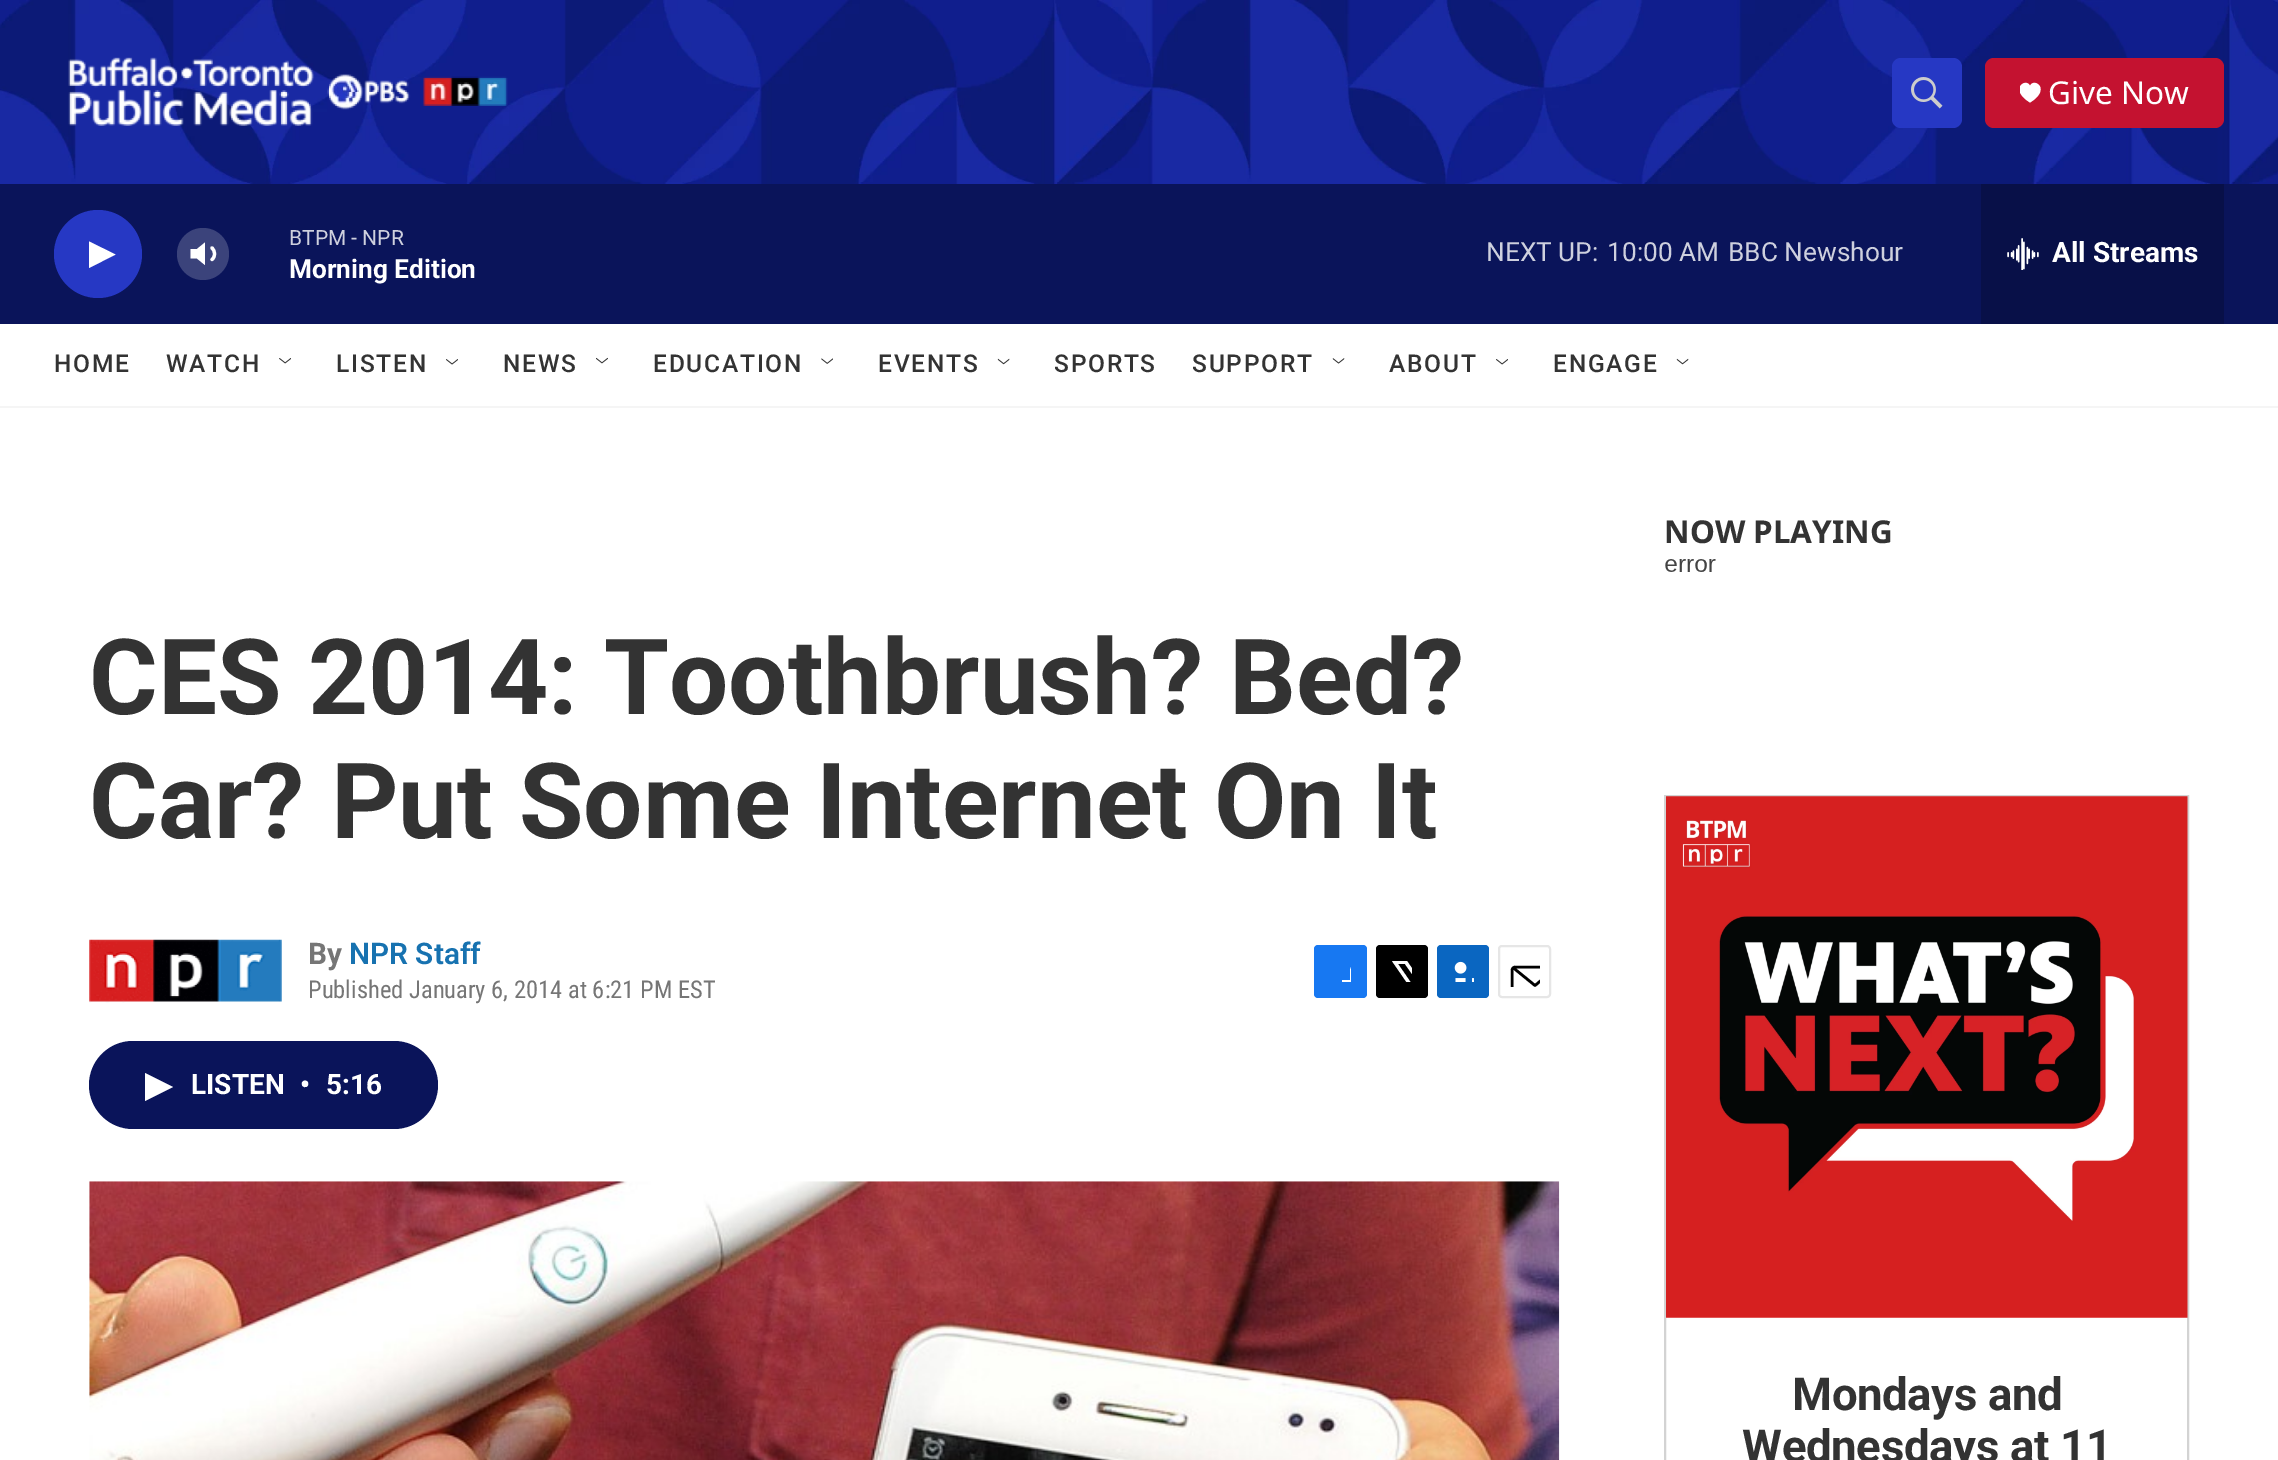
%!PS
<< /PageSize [2278 1460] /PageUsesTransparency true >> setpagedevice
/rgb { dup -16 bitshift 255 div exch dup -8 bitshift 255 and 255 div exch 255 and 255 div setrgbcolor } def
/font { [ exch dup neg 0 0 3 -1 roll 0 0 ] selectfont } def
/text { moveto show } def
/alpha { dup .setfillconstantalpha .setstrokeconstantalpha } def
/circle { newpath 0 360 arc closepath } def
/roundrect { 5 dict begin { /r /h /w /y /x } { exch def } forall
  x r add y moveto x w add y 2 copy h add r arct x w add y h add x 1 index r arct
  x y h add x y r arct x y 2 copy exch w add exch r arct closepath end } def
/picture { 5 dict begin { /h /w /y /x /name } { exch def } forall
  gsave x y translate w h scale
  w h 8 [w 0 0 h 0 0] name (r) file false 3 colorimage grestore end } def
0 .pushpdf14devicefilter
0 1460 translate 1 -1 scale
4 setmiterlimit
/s1 { /NotoSans-Regular 31.5 font 16#FFFFFF rgb } def
/s2 { /Roboto-Regular 21 font 16#CED0DE rgb } def
/s3 { /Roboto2-Bold 26.25 font 16#FFFFFF rgb } def
/s4 { /Roboto-Regular 26.25 font 16#CED0DE rgb } def
/s5 { /Roboto2-Bold 28 font 16#FFFFFF rgb } def
/s6 { /Roboto-Bold 105 font 16#333333 rgb } def
/s7 { /Roboto-Bold 29.75 font 16#767676 rgb } def
/s8 { /Roboto-SemiBold 29.75 font 16#1772B0 rgb } def
/s9 { /RobotoCondensed-Regular 24.5 font 16#767676 rgb } def
/s10 { /NotoSans-Bold 31.5 font 16#333333 rgb } def
16#FFFFFF rgb
0 0 2278 1460 rectfill
16#F5F5F5 rgb
0 406 2278 2 rectfill
(pic1.raw) 0 0 2278 184 picture
(pic2.raw) 68 57 440 69 picture
16#2638C4 rgb
1892 58 70 70 9 roundrect fill
(pic3.raw) 1911 77 32 32 picture
16#C41230 rgb
1985 58 239 70 9 roundrect fill
gsave
2020 82 21 21 rectclip
16#FFFFFF rgb
2030 86 moveto 2026.5 77 2008 89 2030 102.5 curveto 2052 89 2033.5 77 2030 86 curveto closepath fill
grestore
s1
(Give Now) 2048 104 text
16#0A145A rgb
0 184 2278 140 rectfill
16#2638C4 rgb
98 254 44 circle fill
16#FFFFFF rgb
89 241.5 moveto 115.5 254.5 lineto 89 268 lineto closepath fill
205 242.5 moveto 197 249 lineto 190.5 249 lineto 190.5 258.5 lineto 197 258.5 lineto 205 265 lineto closepath fill
3.2 setlinewidth
1 setlinecap
1 setlinejoin
212 248 moveto 215.5 251.5 215.5 256.5 212 259.5 curveto stroke
0.2 alpha
203 254 26 circle fill
1 alpha
s2
(BTPM - NPR) 289 245 text
s3
(Morning Edition) 289 278 text
s4
(NEXT UP:) 1486 261 text
(10:00 AM) 1607 261 text
(BBC Newshour) 1728 261 text
16#081048 rgb
1981 184 243 140 rectfill
(pic4.raw) 2007 238 32 32 picture
s5
(All Streams) 2052 262 text
/Roboto-Medium 24.5 font
16#333333 rgb
54 372 moveto 1.75 0 (HOME) ashow
166 372 moveto 1.75 0 (WATCH) ashow
(pic5.raw) 279 358 12 6 picture
336 372 moveto 1.75 0 (LISTEN) ashow
(pic6.raw) 446 359 12 6 picture
503 372 moveto 1.75 0 (NEWS) ashow
(pic7.raw) 596 357 12 7 picture
653 372 moveto 1.75 0 (EDUCATION) ashow
(pic8.raw) 821 358 12 6 picture
878 372 moveto 1.75 0 (EVENTS) ashow
(pic9.raw) 997 358 13 7 picture
1054 372 moveto 1.75 0 (SPORTS) ashow
1192 372 moveto 1.75 0 (SUPPORT) ashow
(pic10.raw) 1332 358 13 6 picture
1389 372 moveto 1.75 0 (ABOUT) ashow
(pic11.raw) 1496 359 12 6 picture
1553 372 moveto 1.75 0 (ENGAGE) ashow
(pic12.raw) 1676 358 13 7 picture
s6
(CES 2014: Toothbrush? Bed?) 89 714 text
(Car? Put Some Internet On It) 89 838 text
(pic13.raw) 89 939 193 64 picture
s7
(By) 308 964 text
s8
(NPR Staff) 349 964 text
s9
(Published January 6, 2014 at 6:21 PM EST) 308 998 text
16#1778F2 rgb
1314 945 53 53 4 roundrect fill
gsave
1330 961 21 21 rectclip
16#FFFFFF rgb
1359 998 moveto 1350 998 lineto 1350 989 lineto 1342 989 lineto 1342 980 lineto 1350 980 lineto 1350 970 lineto 1352 961.5 1360 961 1367 962 curveto 1367 970 lineto 1357.5 970 1359 971.5 1359 980 curveto 1367 980 lineto 1366 989 lineto 1359 989 lineto closepath fill
grestore
16#000000 rgb
1376 945 52 53 4 roundrect fill
gsave
1391 961 21 21 rectclip
16#FFFFFF rgb
1422 983 moveto 1428 991.5 lineto 1428 993 1428 995 1427.5 996 curveto 1405 964 lineto 1398 964 lineto 1421.5 998 lineto 1417.5 998 lineto 1414 993 lineto 1409.5 998 lineto 1405 998 lineto 1412 990 lineto 1392 961 lineto 1407 961 lineto 1420 980 lineto 1428 971 lineto 1428 976 lineto closepath fill
grestore
16#0A66C1 rgb
1437 945 52 53 4 roundrect fill
(pic14.raw) 1454 961 20 21 picture
16#E6E6E6 rgb
2 setlinewidth
0 setlinecap
0 setlinejoin
1499 946 51 51 3 roundrect stroke
gsave
1509 956 31 31 rectclip
16#000000 rgb
2.6 setlinewidth
1 setlinecap
1 setlinejoin
1557.5 994 moveto 1557.5 995.5 1556 997 1554 997 curveto 1515.5 997 lineto 1513.5 997 1512 995.5 1512 994 curveto 1512 970.5 lineto 1512 968.5 1513.5 967 1515.5 967 curveto 1554 967 lineto 1556 967 1557.5 968.5 1557.5 970.5 curveto closepath 1556 968 moveto 1535 985.5 lineto 1513.5 968 lineto stroke
grestore
16#0A145A rgb
89 1041 349 88 44 roundrect fill
16#FFFFFF rgb
145 1073 moveto 173 1087 lineto 145 1101 lineto closepath fill
s5
(LISTEN) 191 1094 text
(•) 300 1094 text
(5:16) 326 1094 text
(pic15.raw) 89 1181 1471 279 picture
s10
(NOW PLAYING) 1664 543 text
(pic16.raw) 1665 559 51 13 picture
16#D3D3D3 rgb
1665 796 523 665 rectstroke
(pic17.raw) 1666 796 522 522 picture
/Roboto-Bold 45.5 font
16#333333 rgb
1792 1410 moveto -0.3 0 (Mondays and) ashow
1742 1462 moveto -0.3 0 (Wednesdays at 11) ashow
.poppdf14devicefilter showpage
